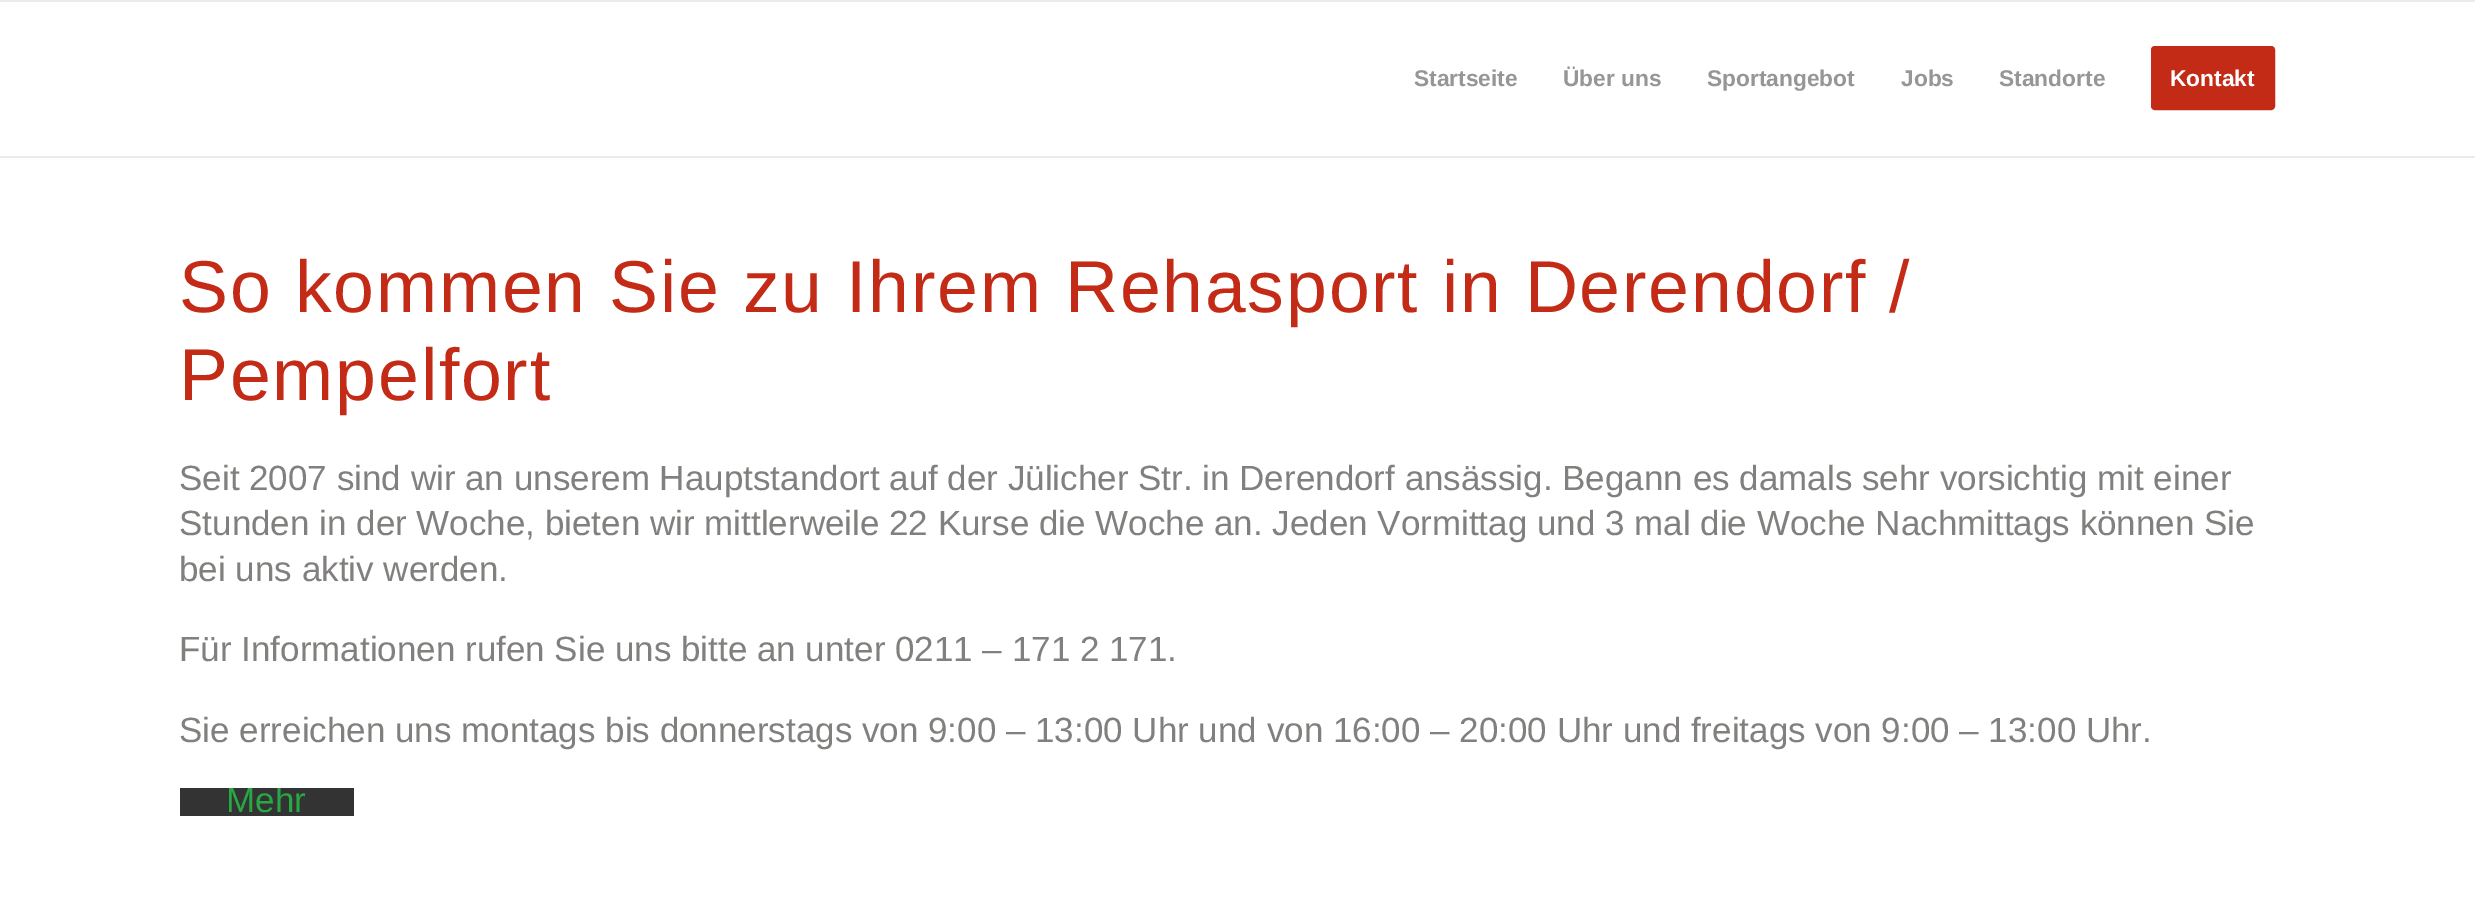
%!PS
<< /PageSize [2475 918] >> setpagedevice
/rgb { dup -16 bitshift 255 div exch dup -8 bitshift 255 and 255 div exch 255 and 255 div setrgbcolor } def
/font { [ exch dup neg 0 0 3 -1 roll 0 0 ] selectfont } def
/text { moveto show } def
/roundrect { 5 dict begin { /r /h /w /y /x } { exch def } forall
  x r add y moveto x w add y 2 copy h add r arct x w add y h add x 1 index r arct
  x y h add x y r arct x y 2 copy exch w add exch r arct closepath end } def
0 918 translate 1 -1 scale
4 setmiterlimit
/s1 { /LiberationSans-Bold 22.75 font 16#969696 rgb } def
/s2 { /LiberationSans-Bold 22.75 font 16#FFFFFF rgb } def
/s3 { /LiberationSans-Regular 35 font 16#81807E rgb } def
/s4 { /LiberationSans-Regular 35 font 16#28A745 rgb } def
16#FFFFFF rgb
0 0 2475 918 rectfill
16#EBEBEB rgb
0 0 2475 2 rectfill
0 156 2475 2 rectfill
s1
(Startseite) 1414 86 text
(Über uns) 1563 86 text
(Sportangebot) 1707 86 text
(Jobs) 1901 86 text
(Standorte) 1999 86 text
16#C32B17 rgb
2153 48 120 60 2 roundrect gsave fill grestore
4 setlinewidth
stroke
s2
(Kontakt) 2170 86 text
/LiberationSans-Regular 73.5 font
16#C32B17 rgb
179 312 moveto 1.75 0 (So kommen Sie zu Ihrem Rehasport in Derendorf /) ashow
179 400 moveto 1.75 0 (Pempelfort) ashow
s3
(Seit 2007 sind wir an unserem Hauptstandort auf der Jülicher Str. in Derendorf ansässig. Begann es damals sehr vorsichtig mit einer) 179 490 text
(Stunden in der Woche, bieten wir mittlerweile 22 Kurse die Woche an. Jeden Vormittag und 3 mal die Woche Nachmittags können Sie) 179 535 text
(bei uns aktiv werden.) 179 581 text
(Für Informationen rufen Sie uns bitte an unter 0211 – 171 2 171.) 179 661 text
(Sie erreichen uns montags bis donnerstags von 9:00 – 13:00 Uhr und von 16:00 – 20:00 Uhr und freitags von 9:00 – 13:00 Uhr.) 179 742 text
16#333333 rgb
180 788 174 28 rectfill
gsave
180 788 174 28 rectclip
s4
(Mehr) 226 812 text
grestore
showpage
